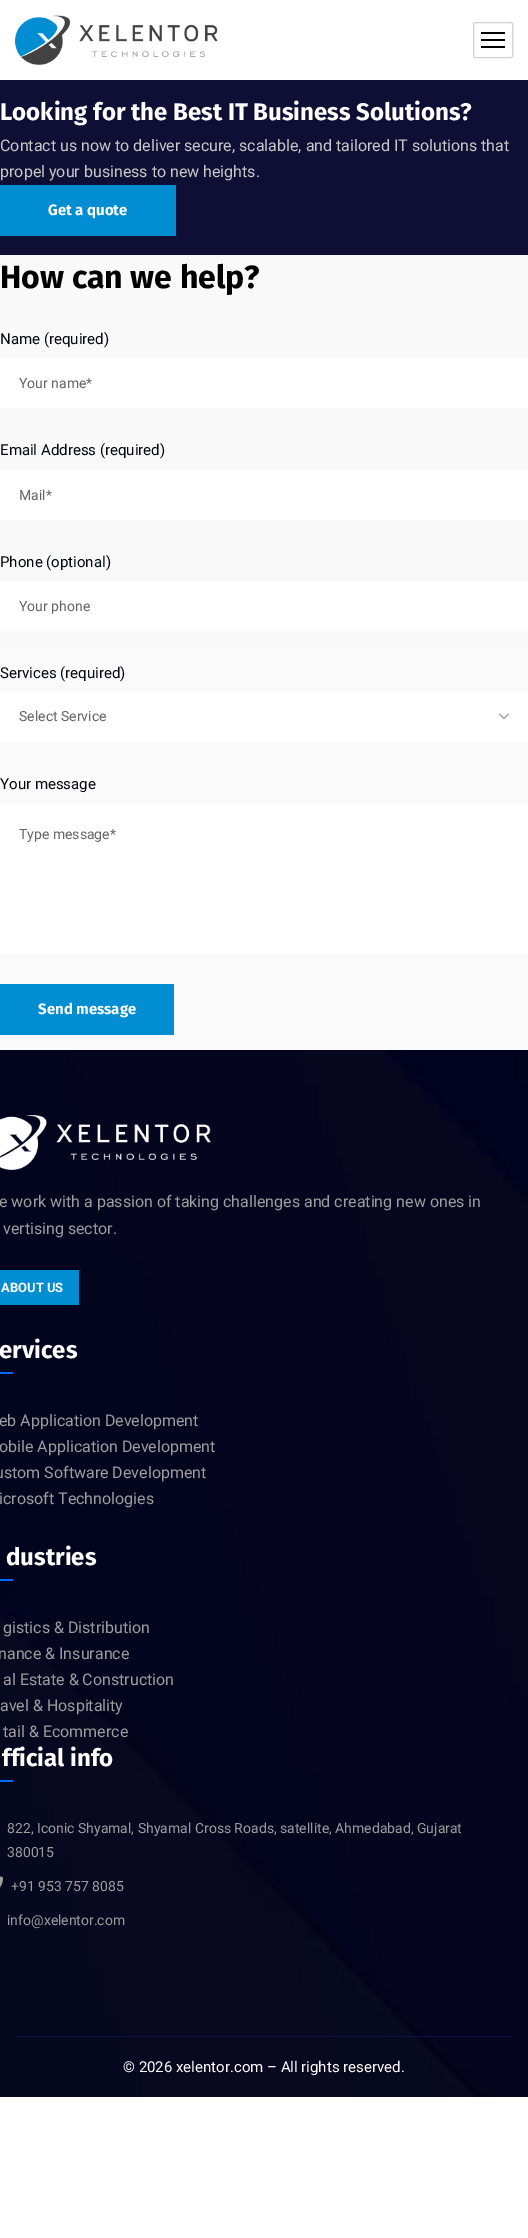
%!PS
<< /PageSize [528 2238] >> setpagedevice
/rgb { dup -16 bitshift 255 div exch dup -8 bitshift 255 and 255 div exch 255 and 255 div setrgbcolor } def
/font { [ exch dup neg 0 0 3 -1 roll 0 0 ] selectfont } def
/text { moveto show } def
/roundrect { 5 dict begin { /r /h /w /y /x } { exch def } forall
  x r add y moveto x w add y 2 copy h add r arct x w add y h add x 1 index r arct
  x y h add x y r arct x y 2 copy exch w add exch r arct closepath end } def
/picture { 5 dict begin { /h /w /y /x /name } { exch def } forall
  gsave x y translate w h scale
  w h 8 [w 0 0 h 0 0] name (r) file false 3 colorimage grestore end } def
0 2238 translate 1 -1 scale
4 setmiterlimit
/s1 { /FiraSans-Bold 24 font 16#FFFFFF rgb } def
/s2 { /Roboto-Regular 16 font 16#C9C8C8 rgb } def
/s3 { /FiraSans-Bold 15 font 16#FFFFFF rgb } def
/s4 { /FiraSans-Bold 32 font 16#000001 rgb } def
/s5 { /Roboto-Regular 15 font 16#00060F rgb } def
/s6 { /Roboto-Regular 14 font 16#656565 rgb } def
/s7 { /Roboto-Regular 16 font 16#9D9D9D rgb } def
/s8 { /Roboto-Bold 13 font 16#FFFFFF rgb } def
/s9 { /Roboto-Regular 14 font 16#9D9D9D rgb } def
/s10 { /Roboto-Regular 15 font 16#FFFFFF rgb } def
16#FFFFFF rgb
0 0 528 2238 rectfill
(pic1.raw) 15 15 203 50 picture
16#D1D1D1 rgb
473.5 22.5 39 35 1.5 roundrect stroke
16#000000 rgb
481 32 24 2 rectfill
481 39 24 2 rectfill
481 46 24 2 rectfill
16#0F0F35 rgb
0 80 528 175 rectfill
s1
(Looking for the Best IT Business Solutions?) 0 120 text
s2
(Contact us now to deliver secure, scalable, and tailored IT solutions that) 0 151 text
(propel your business to new heights.) 0 177 text
16#008DD2 rgb
0 185 176 51 rectfill
s3
(Get a quote) 48 215 text
gsave 0 255 moveto 528 255 lineto 528 1050 lineto 0 1050 lineto closepath clip newpath
<< /ShadingType 2 /ColorSpace /DeviceRGB /Coords [264 255 264 1050] /Extend [true true] /Function << /FunctionType 2 /Domain [0 1] /C0 [0.976 0.976 0.976] /C1 [0.98 0.98 0.98] /N 1 >> >> shfill grestore
s4
(How can we help?) 0 288 text
s5
(Name \(required\)) 0 344 text
16#FFFFFF rgb
0 358 528 50 rectfill
s6
(Your name*) 19 388 text
s5
(Email Address \(required\)) 0 455 text
16#FFFFFF rgb
0 470 528 50 rectfill
s6
(Mail*) 19 500 text
s5
(Phone \(optional\)) 0 567 text
16#FFFFFF rgb
0 581 528 50 rectfill
s6
(Your phone) 19 611 text
s5
(Services \(required\)) 0 678 text
16#FFFFFF rgb
0 692 528 50 rectfill
s6
(Select Service) 19 721 text
(pic2.raw) 499 713 10 7 picture
s5
(Your message) 0 789 text
16#FFFFFF rgb
0 804 528 150 rectfill
s6
(Type message*) 19 839 text
16#008DD2 rgb
0 984 174 51 rectfill
s3
(Send message) 38 1014 text
(pic3.raw) 0 1050 528 1047 picture
(pic4.raw) 0 1115 211 55 picture
s7
(e work with a passion of taking challenges and creating new ones in) -1 1207 text
(vertising sector.) 3 1234 text
16#008DD2 rgb
0 1270 79 35 rectfill
s8
(ABOUT US) 1 1292 text
s1
(ervices) -1 1358 text
16#006CFF rgb
0 1372 13 2 rectfill
s7
(eb Application Development) -1 1426 text
(obile Application Development) -1 1452 text
(ustom Software Development) -5 1478 text
(icrosoft Technologies) -1 1504 text
s1
(dustries) 6 1565 text
16#006CFF rgb
0 1579 13 2 rectfill
s7
(gistics & Distribution) 3 1633 text
(nance & Insurance) -2 1659 text
(al Estate & Construction) 3 1685 text
(avel & Hospitality) 0 1711 text
(tail & Ecommerce) 3 1737 text
s1
(fficial info) 2 1766 text
16#006CFF rgb
0 1780 13 2 rectfill
s9
(822, Iconic Shyamal, Shyamal Cross Roads, satellite, Ahmedabad, Gujarat) 7 1833 text
(380015) 7 1857 text
(pic5.raw) 0 1876 3 12 picture
(+91 953 757 8085) 11 1891 text
(info@xelentor.com) 7 1925 text
16#0F0F46 rgb
15 2036 498 1 rectfill
s10
(© 2026 xelentor.com – All rights reserved.) 123 2072 text
showpage
